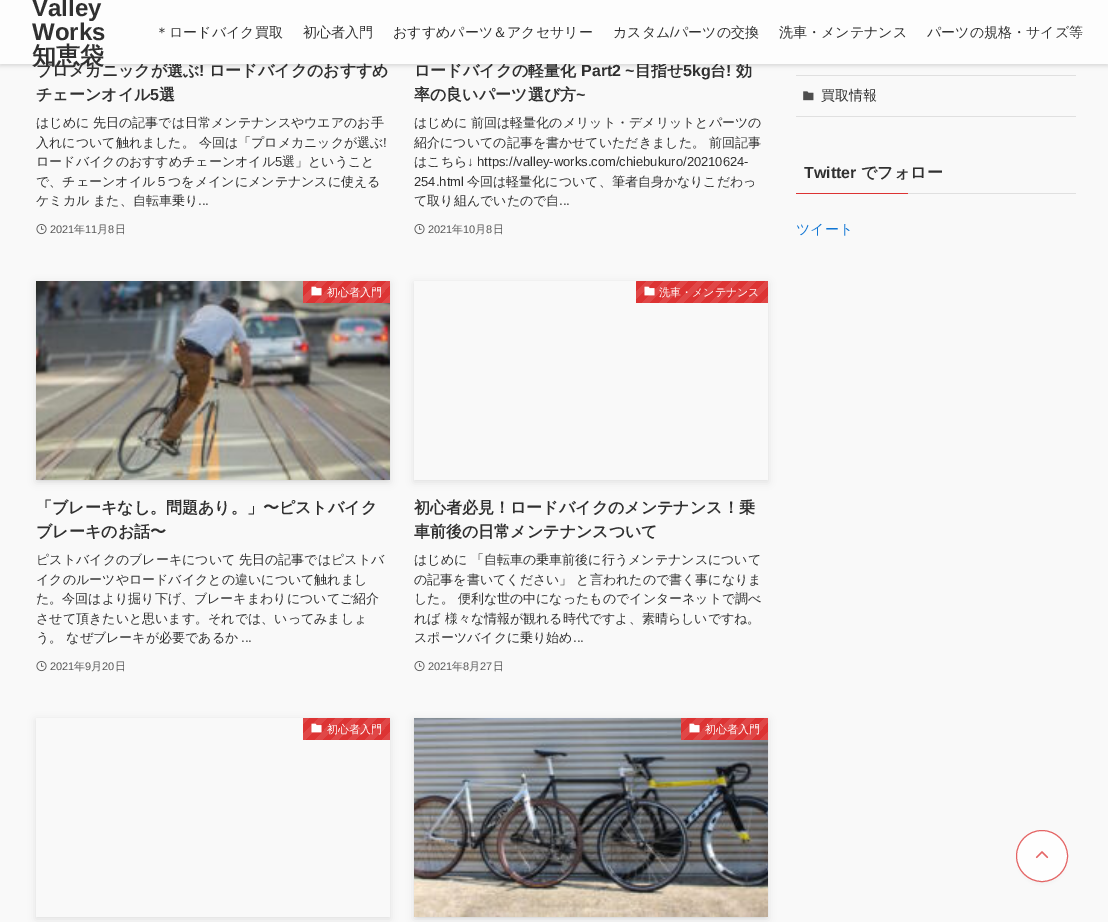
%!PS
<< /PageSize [1108 922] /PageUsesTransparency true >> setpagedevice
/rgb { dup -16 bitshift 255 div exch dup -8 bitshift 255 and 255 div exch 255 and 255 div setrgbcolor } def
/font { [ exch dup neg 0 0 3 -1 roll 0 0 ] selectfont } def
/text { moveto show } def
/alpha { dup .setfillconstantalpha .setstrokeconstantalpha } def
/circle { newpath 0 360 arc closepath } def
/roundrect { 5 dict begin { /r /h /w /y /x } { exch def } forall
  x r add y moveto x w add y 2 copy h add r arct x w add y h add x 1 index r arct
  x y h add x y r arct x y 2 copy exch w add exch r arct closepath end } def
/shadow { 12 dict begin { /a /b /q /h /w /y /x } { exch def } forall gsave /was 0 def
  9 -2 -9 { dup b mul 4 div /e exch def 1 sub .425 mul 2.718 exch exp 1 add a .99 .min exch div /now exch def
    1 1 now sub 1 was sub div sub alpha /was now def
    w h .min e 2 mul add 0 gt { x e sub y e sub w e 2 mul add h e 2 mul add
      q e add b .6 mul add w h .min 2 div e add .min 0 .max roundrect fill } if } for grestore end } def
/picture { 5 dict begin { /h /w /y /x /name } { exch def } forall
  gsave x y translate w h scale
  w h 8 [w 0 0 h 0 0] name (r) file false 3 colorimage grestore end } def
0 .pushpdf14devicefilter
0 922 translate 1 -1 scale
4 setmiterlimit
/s1 { /WenQuanYiZenHei-Bold 16 font 16#303030 rgb } def
/s2 { /LiberationSans-Bold 24 font 16#303030 rgb } def
/s3 { /WenQuanYiZenHei-Bold 24 font 16#303030 rgb } def
/s4 { /WenQuanYiZenHei-Medium 14 font 16#303030 rgb } def
/s5 { /LiberationSans-Regular 14 font 16#303030 rgb } def
/s6 { /LiberationSans-Bold 16 font 16#303030 rgb } def
/s7 { /WenQuanYiZenHei-Medium 13 font 16#303030 rgb } def
/s8 { /LiberationSans-Regular 13 font 16#303030 rgb } def
/s9 { /LiberationSans-Regular 11 font 16#585858 rgb } def
/s10 { /WenQuanYiZenHei-Medium 11 font 16#585858 rgb } def
/s11 { /WenQuanYiZenHei-Medium 11 font 16#FFFFFF rgb } def
/s12 { /WenQuanYiZenHei-Medium 14 font 16#1176D4 rgb } def
16#F9F9F9 rgb
0 0 1108 922 rectfill
16#000000 rgb
0 2 1108 64 0 2 0.12 shadow
s1
(プロメカニックが選ぶ) 36 76 text
(ロードバイクの軽量化) 414 76 text
(目指せ) 635 76 text
(台) 710 76 text
(効) 736 76 text
16#FDFDFD rgb
0 0 1108 64 rectfill
s2
(Valley) 32 16 text
(Works) 32 40 text
s3
(知恵袋) 32 64 text
s4
(＊ロードバイク買取) 155 37 text
(初心者入門) 303 37 text
(おすすめパーツ＆アクセサリー) 393 37 text
(カスタム) 613 37 text
s5
(/) 670 37 text
s4
(パーツの交換) 674 37 text
(洗車・メンテナンス) 779 37 text
(パーツの規格・サイズ等) 927 37 text
s6
(!) 199 76 text
s1
(ロードバイクのおすすめ) 209 76 text
(チェーンオイル) 36 100 text
s6
(5) 150 100 text
s1
(選) 159 100 text
s7
(はじめに 先日の記事では日常メンテナンスやウエアのお手) 36 127 text
(入れについて触れました。 今回は「プロメカニックが選ぶ) 36 147 text
s8
(!) 383 147 text
s7
(ロードバイクのおすすめチェーンオイル) 36 166 text
s8
(5) 275 166 text
s7
(選」ということ) 282 166 text
(で、チェーンオイル５つをメインにメンテナンスに使える) 36 186 text
(ケミカル また、自転車乗り) 36 205 text
s8
(...) 198 205 text
(pic1.raw) 36 224 11 11 picture
s9
(2021) 50 233 text
s10
(年) 74 233 text
s9
(11) 85 233 text
s10
(月) 97 233 text
s9
(8) 108 233 text
s10
(日) 115 233 text
s6
(Part2 ~) 581 76 text
(5kg) 683 76 text
(!) 726 76 text
s1
(率の良いパーツ選び方) 414 100 text
s6
(~) 576 100 text
s7
(はじめに 前回は軽量化のメリット・デメリットとパーツの) 414 127 text
(紹介についての記事を書かせていただきました。 前回記事) 414 147 text
(はこちら) 414 166 text
s8
(↓ https://valley-works.com/chiebukuro/20210624-) 467 166 text
(254.html) 414 186 text
s7
(今回は軽量化について、筆者自身かなりこだわっ) 467 186 text
(て取り組んでいたので自) 414 205 text
s8
(...) 559 205 text
(pic1.raw) 414 224 11 11 picture
s9
(2021) 428 233 text
s10
(年) 452 233 text
s9
(10) 463 233 text
s10
(月) 475 233 text
s9
(8) 486 233 text
s10
(日) 493 233 text
16#000000 rgb
40 289 346 191 0 2 0.1 shadow
36 283 354 199 0 4 0.1 shadow
(pic2.raw) 36 281 354 199 picture
gsave 303 281 moveto 390 281 lineto 390 303 lineto 303 303 lineto closepath clip newpath
<< /ShadingType 2 /ColorSpace /DeviceRGB /Coords [374 319 314 260] /Extend [true true] /Function << /FunctionType 3 /Domain [0 1] /Functions [<< /FunctionType 2 /Domain [0 1] /C0 [0.878 0.278 0.278] /C1 [0.878 0.278 0.278] /N 1 >> << /FunctionType 2 /Domain [0 1] /C0 [0.867 0.2 0.2] /C1 [0.867 0.2 0.2] /N 1 >> << /FunctionType 2 /Domain [0 1] /C0 [0.878 0.278 0.278] /C1 [0.878 0.278 0.278] /N 1 >> << /FunctionType 2 /Domain [0 1] /C0 [0.867 0.2 0.2] /C1 [0.867 0.2 0.2] /N 1 >> << /FunctionType 2 /Domain [0 1] /C0 [0.878 0.278 0.278] /C1 [0.878 0.278 0.278] /N 1 >> << /FunctionType 2 /Domain [0 1] /C0 [0.867 0.2 0.2] /C1 [0.867 0.2 0.2] /N 1 >> << /FunctionType 2 /Domain [0 1] /C0 [0.878 0.278 0.278] /C1 [0.878 0.278 0.278] /N 1 >> << /FunctionType 2 /Domain [0 1] /C0 [0.867 0.2 0.2] /C1 [0.867 0.2 0.2] /N 1 >> << /FunctionType 2 /Domain [0 1] /C0 [0.878 0.278 0.278] /C1 [0.878 0.278 0.278] /N 1 >> << /FunctionType 2 /Domain [0 1] /C0 [0.867 0.2 0.2] /C1 [0.867 0.2 0.2] /N 1 >> << /FunctionType 2 /Domain [0 1] /C0 [0.878 0.278 0.278] /C1 [0.878 0.278 0.278] /N 1 >> << /FunctionType 2 /Domain [0 1] /C0 [0.867 0.2 0.2] /C1 [0.867 0.2 0.2] /N 1 >> << /FunctionType 2 /Domain [0 1] /C0 [0.878 0.278 0.278] /C1 [0.878 0.278 0.278] /N 1 >> << /FunctionType 2 /Domain [0 1] /C0 [0.867 0.2 0.2] /C1 [0.867 0.2 0.2] /N 1 >>] /Bounds [0.07 0.14 0.21 0.29 0.36 0.43 0.5 0.57 0.64 0.71 0.79 0.86 0.93] /Encode [0 1 0 1 0 1 0 1 0 1 0 1 0 1 0 1 0 1 0 1 0 1 0 1 0 1 0 1] >> >> shfill grestore
(pic3.raw) 311 286 11 10 picture
s11
(初心者入門) 327 296 text
s1
(「ブレーキなし。問題あり。」〜ピストバイク) 36 513 text
(ブレーキのお話〜) 36 537 text
s7
(ピストバイクのブレーキについて 先日の記事ではピストバ) 36 564 text
(イクのルーツやロードバイクとの違いについて触れまし) 36 584 text
(た。今回はより掘り下げ、ブレーキまわりについてご紹介) 36 603 text
(させて頂きたいと思います。それでは、いってみましょ) 36 623 text
(う。 なぜブレーキが必要であるか) 36 642 text
s8
(...) 241 642 text
(pic1.raw) 36 661 11 11 picture
s9
(2021) 50 670 text
s10
(年) 74 670 text
s9
(9) 85 670 text
s10
(月) 91 670 text
s9
(20) 102 670 text
s10
(日) 115 670 text
gsave
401 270 moveto 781 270 lineto 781 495 lineto 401 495 lineto closepath 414 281 moveto 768 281 lineto 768 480 lineto 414 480 lineto closepath eoclip newpath
16#000000 rgb
414 283 354 199 0 4 0.1 shadow
grestore
gsave 636 281 moveto 768 281 lineto 768 303 lineto 636 303 lineto closepath clip newpath
<< /ShadingType 2 /ColorSpace /DeviceRGB /Coords [741 331 656 246] /Extend [true true] /Function << /FunctionType 3 /Domain [0 1] /Functions [<< /FunctionType 2 /Domain [0 1] /C0 [0.878 0.278 0.278] /C1 [0.878 0.278 0.278] /N 1 >> << /FunctionType 2 /Domain [0 1] /C0 [0.867 0.2 0.2] /C1 [0.867 0.2 0.2] /N 1 >> << /FunctionType 2 /Domain [0 1] /C0 [0.878 0.278 0.278] /C1 [0.878 0.278 0.278] /N 1 >> << /FunctionType 2 /Domain [0 1] /C0 [0.867 0.2 0.2] /C1 [0.867 0.2 0.2] /N 1 >> << /FunctionType 2 /Domain [0 1] /C0 [0.878 0.278 0.278] /C1 [0.878 0.278 0.278] /N 1 >> << /FunctionType 2 /Domain [0 1] /C0 [0.867 0.2 0.2] /C1 [0.867 0.2 0.2] /N 1 >> << /FunctionType 2 /Domain [0 1] /C0 [0.878 0.278 0.278] /C1 [0.878 0.278 0.278] /N 1 >> << /FunctionType 2 /Domain [0 1] /C0 [0.867 0.2 0.2] /C1 [0.867 0.2 0.2] /N 1 >> << /FunctionType 2 /Domain [0 1] /C0 [0.878 0.278 0.278] /C1 [0.878 0.278 0.278] /N 1 >> << /FunctionType 2 /Domain [0 1] /C0 [0.867 0.2 0.2] /C1 [0.867 0.2 0.2] /N 1 >> << /FunctionType 2 /Domain [0 1] /C0 [0.878 0.278 0.278] /C1 [0.878 0.278 0.278] /N 1 >> << /FunctionType 2 /Domain [0 1] /C0 [0.867 0.2 0.2] /C1 [0.867 0.2 0.2] /N 1 >> << /FunctionType 2 /Domain [0 1] /C0 [0.878 0.278 0.278] /C1 [0.878 0.278 0.278] /N 1 >> << /FunctionType 2 /Domain [0 1] /C0 [0.867 0.2 0.2] /C1 [0.867 0.2 0.2] /N 1 >> << /FunctionType 2 /Domain [0 1] /C0 [0.878 0.278 0.278] /C1 [0.878 0.278 0.278] /N 1 >> << /FunctionType 2 /Domain [0 1] /C0 [0.867 0.2 0.2] /C1 [0.867 0.2 0.2] /N 1 >> << /FunctionType 2 /Domain [0 1] /C0 [0.878 0.278 0.278] /C1 [0.878 0.278 0.278] /N 1 >> << /FunctionType 2 /Domain [0 1] /C0 [0.867 0.2 0.2] /C1 [0.867 0.2 0.2] /N 1 >> << /FunctionType 2 /Domain [0 1] /C0 [0.878 0.278 0.278] /C1 [0.878 0.278 0.278] /N 1 >> << /FunctionType 2 /Domain [0 1] /C0 [0.867 0.2 0.2] /C1 [0.867 0.2 0.2] /N 1 >>] /Bounds [0.05 0.1 0.15 0.2 0.25 0.3 0.35 0.4 0.45 0.5 0.55 0.6 0.65 0.7 0.75 0.8 0.85 0.9 0.95] /Encode [0 1 0 1 0 1 0 1 0 1 0 1 0 1 0 1 0 1 0 1 0 1 0 1 0 1 0 1 0 1 0 1 0 1 0 1 0 1 0 1] >> >> shfill grestore
(pic4.raw) 644 286 11 10 picture
s11
(洗車・メンテナンス) 659 296 text
s1
(初心者必見！ロードバイクのメンテナンス！乗) 414 513 text
(車前後の日常メンテナンスついて) 414 537 text
s7
(はじめに 「自転車の乗車前後に行うメンテナンスについて) 414 564 text
(の記事を書いてください」 と言われたので書く事になりま) 414 584 text
(した。 便利な世の中になったものでインターネットで調べ) 414 603 text
(れば 様々な情報が観れる時代ですよ、素晴らしいですね。) 414 623 text
(スポーツバイクに乗り始め) 414 642 text
s8
(...) 573 642 text
(pic1.raw) 414 661 11 11 picture
s9
(2021) 428 670 text
s10
(年) 452 670 text
s9
(8) 463 670 text
s10
(月) 469 670 text
s9
(27) 480 670 text
s10
(日) 493 670 text
gsave
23 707 moveto 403 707 lineto 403 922 lineto 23 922 lineto closepath 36 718 moveto 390 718 lineto 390 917 lineto 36 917 lineto closepath eoclip newpath
16#000000 rgb
36 720 354 199 0 4 0.1 shadow
grestore
gsave 303 718 moveto 390 718 lineto 390 740 lineto 303 740 lineto closepath clip newpath
<< /ShadingType 2 /ColorSpace /DeviceRGB /Coords [374 756 314 697] /Extend [true true] /Function << /FunctionType 3 /Domain [0 1] /Functions [<< /FunctionType 2 /Domain [0 1] /C0 [0.878 0.278 0.278] /C1 [0.878 0.278 0.278] /N 1 >> << /FunctionType 2 /Domain [0 1] /C0 [0.867 0.2 0.2] /C1 [0.867 0.2 0.2] /N 1 >> << /FunctionType 2 /Domain [0 1] /C0 [0.878 0.278 0.278] /C1 [0.878 0.278 0.278] /N 1 >> << /FunctionType 2 /Domain [0 1] /C0 [0.867 0.2 0.2] /C1 [0.867 0.2 0.2] /N 1 >> << /FunctionType 2 /Domain [0 1] /C0 [0.878 0.278 0.278] /C1 [0.878 0.278 0.278] /N 1 >> << /FunctionType 2 /Domain [0 1] /C0 [0.867 0.2 0.2] /C1 [0.867 0.2 0.2] /N 1 >> << /FunctionType 2 /Domain [0 1] /C0 [0.878 0.278 0.278] /C1 [0.878 0.278 0.278] /N 1 >> << /FunctionType 2 /Domain [0 1] /C0 [0.867 0.2 0.2] /C1 [0.867 0.2 0.2] /N 1 >> << /FunctionType 2 /Domain [0 1] /C0 [0.878 0.278 0.278] /C1 [0.878 0.278 0.278] /N 1 >> << /FunctionType 2 /Domain [0 1] /C0 [0.867 0.2 0.2] /C1 [0.867 0.2 0.2] /N 1 >> << /FunctionType 2 /Domain [0 1] /C0 [0.878 0.278 0.278] /C1 [0.878 0.278 0.278] /N 1 >> << /FunctionType 2 /Domain [0 1] /C0 [0.867 0.2 0.2] /C1 [0.867 0.2 0.2] /N 1 >> << /FunctionType 2 /Domain [0 1] /C0 [0.878 0.278 0.278] /C1 [0.878 0.278 0.278] /N 1 >> << /FunctionType 2 /Domain [0 1] /C0 [0.867 0.2 0.2] /C1 [0.867 0.2 0.2] /N 1 >>] /Bounds [0.07 0.14 0.21 0.29 0.36 0.43 0.5 0.57 0.64 0.71 0.79 0.86 0.93] /Encode [0 1 0 1 0 1 0 1 0 1 0 1 0 1 0 1 0 1 0 1 0 1 0 1 0 1 0 1] >> >> shfill grestore
(pic3.raw) 311 723 11 10 picture
s11
(初心者入門) 327 733 text
16#000000 rgb
418 726 346 191 0 2 0.1 shadow
414 720 354 199 0 4 0.1 shadow
(pic5.raw) 414 718 354 199 picture
gsave 681 718 moveto 768 718 lineto 768 740 lineto 681 740 lineto closepath clip newpath
<< /ShadingType 2 /ColorSpace /DeviceRGB /Coords [752 756 692 697] /Extend [true true] /Function << /FunctionType 3 /Domain [0 1] /Functions [<< /FunctionType 2 /Domain [0 1] /C0 [0.878 0.278 0.278] /C1 [0.878 0.278 0.278] /N 1 >> << /FunctionType 2 /Domain [0 1] /C0 [0.867 0.2 0.2] /C1 [0.867 0.2 0.2] /N 1 >> << /FunctionType 2 /Domain [0 1] /C0 [0.878 0.278 0.278] /C1 [0.878 0.278 0.278] /N 1 >> << /FunctionType 2 /Domain [0 1] /C0 [0.867 0.2 0.2] /C1 [0.867 0.2 0.2] /N 1 >> << /FunctionType 2 /Domain [0 1] /C0 [0.878 0.278 0.278] /C1 [0.878 0.278 0.278] /N 1 >> << /FunctionType 2 /Domain [0 1] /C0 [0.867 0.2 0.2] /C1 [0.867 0.2 0.2] /N 1 >> << /FunctionType 2 /Domain [0 1] /C0 [0.878 0.278 0.278] /C1 [0.878 0.278 0.278] /N 1 >> << /FunctionType 2 /Domain [0 1] /C0 [0.867 0.2 0.2] /C1 [0.867 0.2 0.2] /N 1 >> << /FunctionType 2 /Domain [0 1] /C0 [0.878 0.278 0.278] /C1 [0.878 0.278 0.278] /N 1 >> << /FunctionType 2 /Domain [0 1] /C0 [0.867 0.2 0.2] /C1 [0.867 0.2 0.2] /N 1 >> << /FunctionType 2 /Domain [0 1] /C0 [0.878 0.278 0.278] /C1 [0.878 0.278 0.278] /N 1 >> << /FunctionType 2 /Domain [0 1] /C0 [0.867 0.2 0.2] /C1 [0.867 0.2 0.2] /N 1 >> << /FunctionType 2 /Domain [0 1] /C0 [0.878 0.278 0.278] /C1 [0.878 0.278 0.278] /N 1 >> << /FunctionType 2 /Domain [0 1] /C0 [0.867 0.2 0.2] /C1 [0.867 0.2 0.2] /N 1 >>] /Bounds [0.07 0.14 0.21 0.29 0.36 0.43 0.5 0.57 0.64 0.71 0.79 0.86 0.93] /Encode [0 1 0 1 0 1 0 1 0 1 0 1 0 1 0 1 0 1 0 1 0 1 0 1 0 1 0 1] >> >> shfill grestore
(pic3.raw) 689 723 11 10 picture
s11
(初心者入門) 705 733 text
16#E0E0E0 rgb
796 75 280 1 rectfill
796 116 280 1 rectfill
(pic6.raw) 803 91 11 10 picture
s4
(買取情報) 821 100 text
s6
(Twitter) 804 178 text
s1
(でフォロー) 861 178 text
16#DD3333 rgb
796 193 112 1 rectfill
16#E0E0E0 rgb
908 193 168 1 rectfill
s12
(ツイート) 796 234 text
16#3E3E3E rgb
1020 838 44 44 22 2 0.1 shadow
16#FEFEFE rgb
1042 856 25.5 circle gsave fill grestore
16#E46565 rgb
stroke
(pic7.raw) 1035 851 14 8 picture
.poppdf14devicefilter showpage
